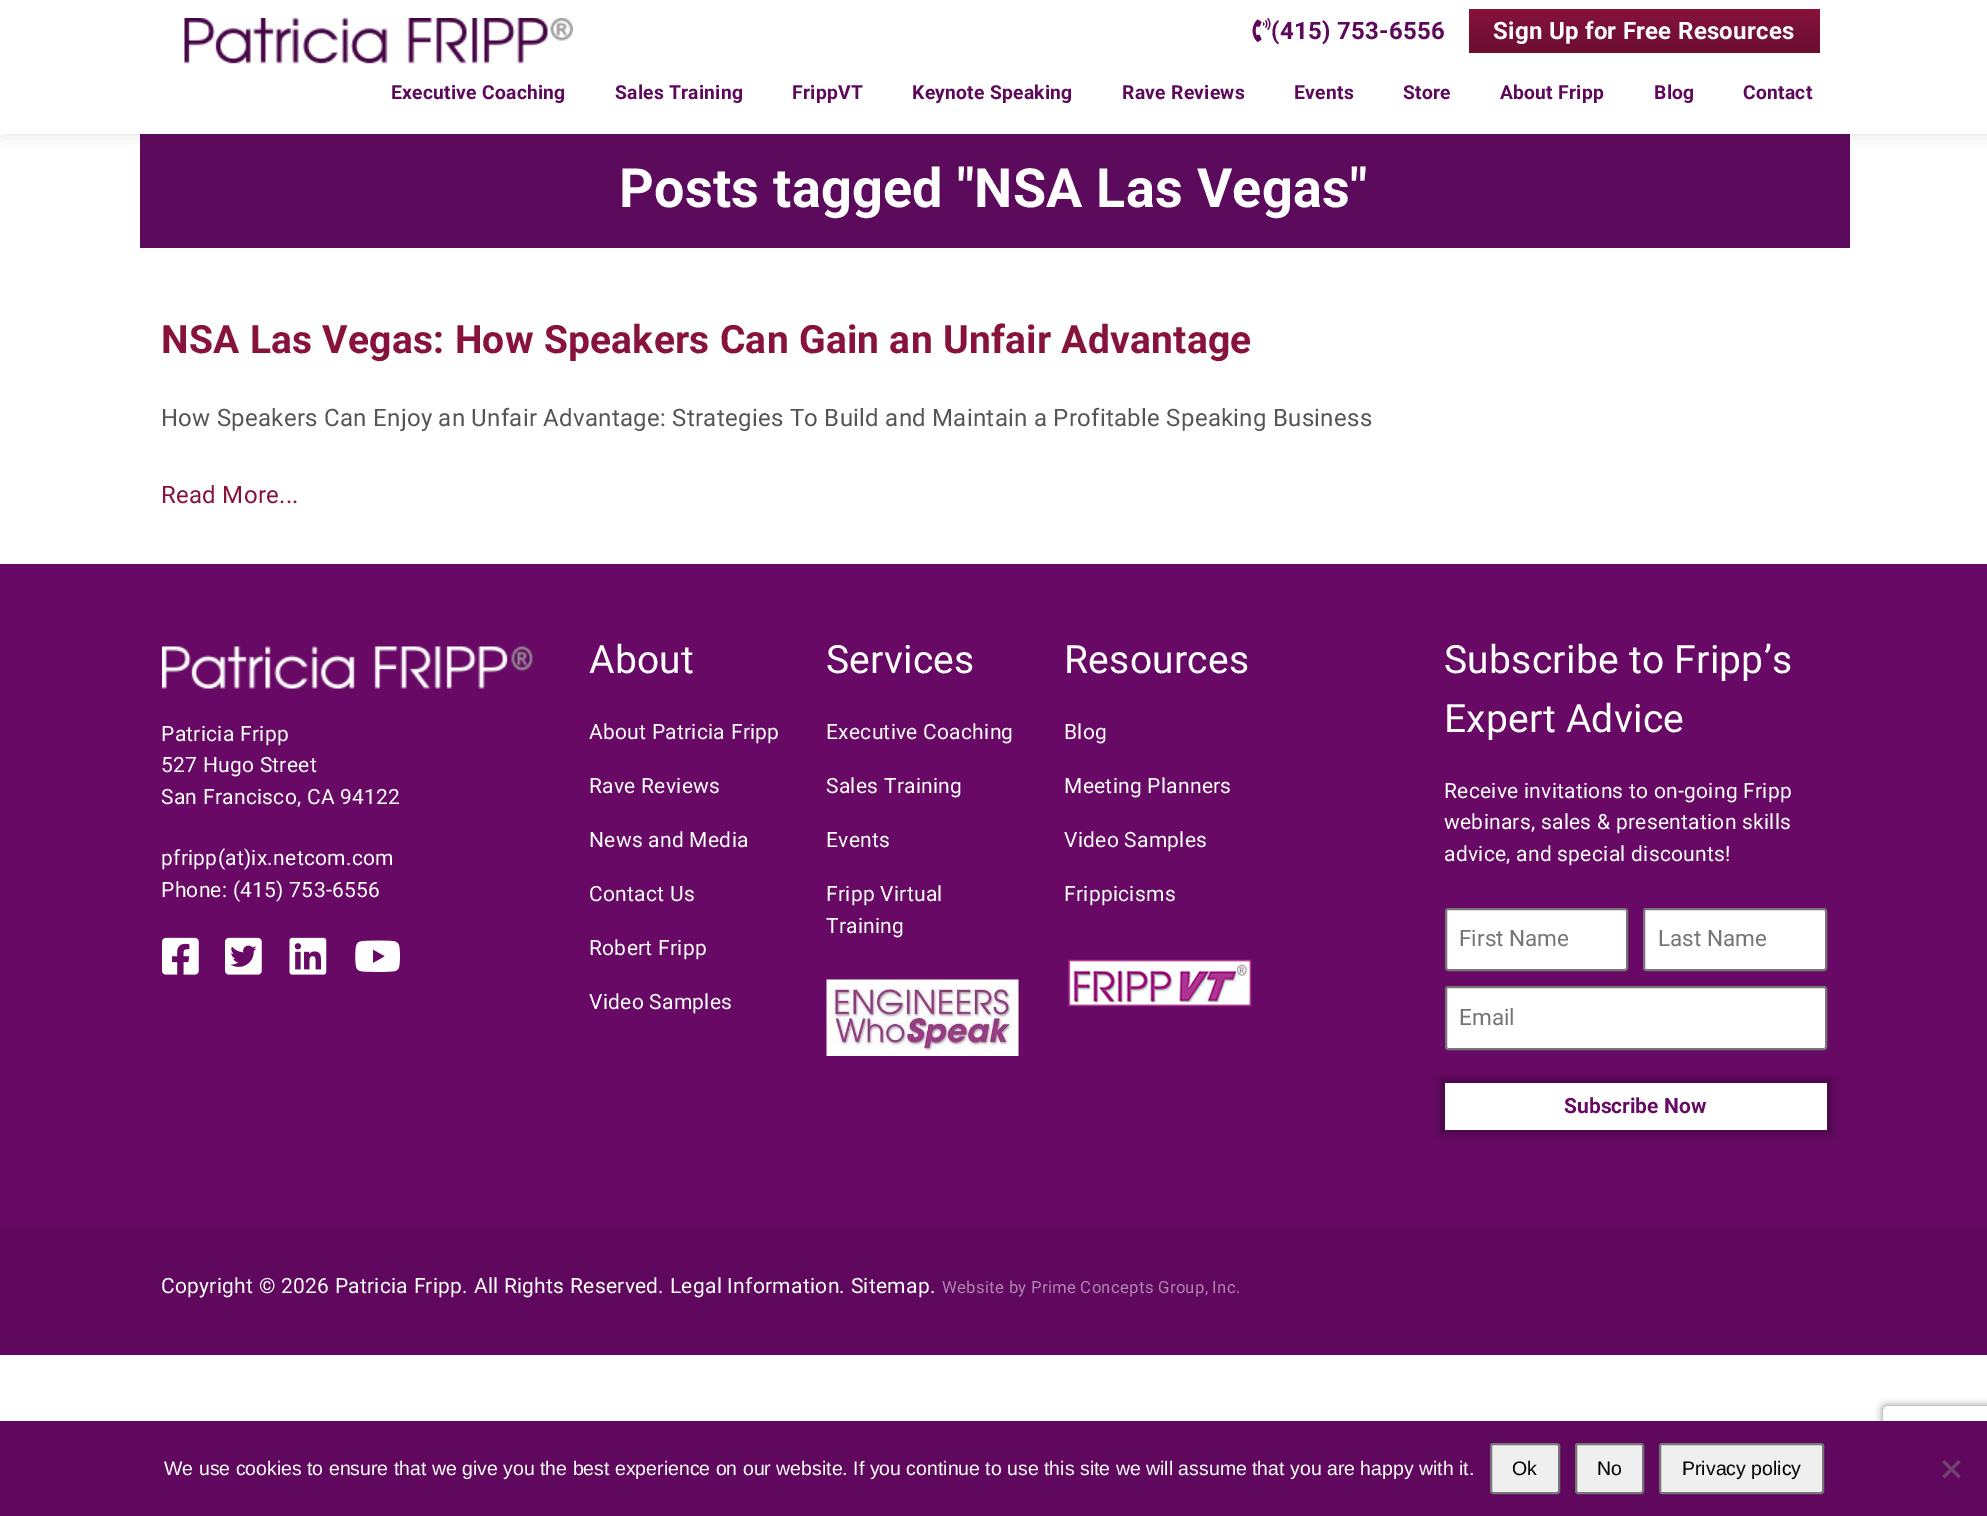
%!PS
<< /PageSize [1987 1516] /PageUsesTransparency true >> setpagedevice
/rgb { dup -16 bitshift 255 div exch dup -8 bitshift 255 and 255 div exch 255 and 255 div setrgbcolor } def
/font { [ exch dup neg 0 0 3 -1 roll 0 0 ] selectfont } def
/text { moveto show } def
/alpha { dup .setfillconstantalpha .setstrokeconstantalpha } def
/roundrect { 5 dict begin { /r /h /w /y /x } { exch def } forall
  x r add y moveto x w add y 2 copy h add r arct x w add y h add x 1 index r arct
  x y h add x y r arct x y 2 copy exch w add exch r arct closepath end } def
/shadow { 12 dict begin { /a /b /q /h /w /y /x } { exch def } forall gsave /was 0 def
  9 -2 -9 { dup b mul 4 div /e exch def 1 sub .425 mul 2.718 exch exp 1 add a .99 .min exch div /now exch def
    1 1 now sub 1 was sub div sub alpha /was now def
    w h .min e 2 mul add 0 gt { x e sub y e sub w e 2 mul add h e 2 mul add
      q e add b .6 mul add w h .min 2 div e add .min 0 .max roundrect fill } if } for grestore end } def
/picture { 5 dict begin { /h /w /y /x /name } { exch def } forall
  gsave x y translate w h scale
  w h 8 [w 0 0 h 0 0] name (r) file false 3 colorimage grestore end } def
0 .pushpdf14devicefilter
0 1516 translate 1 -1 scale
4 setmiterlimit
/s1 { /Roboto-Regular 22.5 font 16#757575 rgb } def
/s2 { /Roboto-Bold 21 font 16#690966 rgb } def
/s3 { /LiberationSans-Regular 19.5 font 16#FFFFFF rgb } def
/s4 { /LiberationSans-Regular 19.5 font 16#000000 rgb } def
16#FFFFFF rgb
0 0 1987 1516 rectfill
16#5C0A5B rgb
140 134 1710 114 rectfill
gsave
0 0 moveto 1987 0 lineto 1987 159 lineto 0 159 lineto closepath 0 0 moveto 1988 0 lineto 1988 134 lineto 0 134 lineto closepath eoclip newpath
16#000000 rgb
3 0 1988 134 0 8 0.12 shadow
grestore
(pic1.raw) 184 18 389 46 picture
(pic2.raw) 1252 18 19 24 picture
/Roboto-Bold 24 font
16#5D085B rgb
1271 39 moveto 0.27 0 (\(415\) 753-6556) ashow
gsave 1469 9 moveto 1820 9 lineto 1820 53 lineto 1469 53 lineto closepath clip newpath
<< /ShadingType 2 /ColorSpace /DeviceRGB /Coords [1644 9 1644 53] /Extend [true true] /Function << /FunctionType 2 /Domain [0 1] /C0 [0.529 0.071 0.235] /C1 [0.42 0.055 0.184] /N 1 >> >> shfill grestore
16#FFFFFF rgb
1493 39 moveto 0.27 0 (Sign Up for Free Resources) ashow
/Roboto-Bold 19.25 font
16#5D085B rgb
391 99 moveto 0.27 0 (Executive Coaching) ashow
615 99 moveto 0.27 0 (Sales Training) ashow
792 99 moveto 0.27 0 (FrippVT) ashow
912 99 moveto 0.27 0 (Keynote Speaking) ashow
1122 99 moveto 0.27 0 (Rave Reviews) ashow
1294 99 moveto 0.27 0 (Events) ashow
1403 99 moveto 0.27 0 (Store) ashow
1500 99 moveto 0.27 0 (About Fripp) ashow
1654 99 moveto 0.27 0 (Blog) ashow
1743 99 moveto 0.27 0 (Contact) ashow
/Roboto-Bold 54 font
16#FFFFFF rgb
619 207 moveto 0.27 0 (Posts tagged "NSA Las Vegas") ashow
/Roboto-Bold 39 font
16#87123C rgb
161 353 moveto 0.27 0 (NSA Las Vegas: How Speakers Can Gain an Unfair Advantage) ashow
/Roboto-Regular 24 font
16#555555 rgb
161 426 moveto 0.27 0 (How Speakers Can Enjoy an Unfair Advantage: Strategies To Build and Maintain a Profitable Speaking Business) ashow
16#87123C rgb
161 503 moveto 0.27 0 (Read More...) ashow
16#5F085D rgb
0 1226 1987 129 rectfill
16#690966 rgb
0 564 1987 662 rectfill
(pic3.raw) 162 646 371 43 picture
/Roboto-Regular 21 font
16#FFFFFF rgb
161 741 moveto 0.27 0 (Patricia Fripp) ashow
161 772 moveto 0.27 0 (527 Hugo Street) ashow
161 804 moveto 0.27 0 (San Francisco, CA 94122) ashow
161 865 moveto 0.27 0 (pfripp\(at\)ix.netcom.com) ashow
161 897 moveto 0.27 0 (Phone: \(415\) 753-6556) ashow
(pic4.raw) 162 937 37 38 picture
(pic5.raw) 225 937 37 38 picture
(pic6.raw) 289 937 38 38 picture
(pic7.raw) 355 940 45 32 picture
/Roboto-Regular 39 font
589 673 moveto 0.27 0 (About) ashow
/Roboto-Regular 21 font
589 739 moveto 0.27 0 (About Patricia Fripp) ashow
589 793 moveto 0.27 0 (Rave Reviews) ashow
589 847 moveto 0.27 0 (News and Media) ashow
589 901 moveto 0.27 0 (Contact Us) ashow
589 955 moveto 0.27 0 (Robert Fripp) ashow
589 1009 moveto 0.27 0 (Video Samples) ashow
/Roboto-Regular 39 font
826 673 moveto 0.27 0 (Services) ashow
/Roboto-Regular 21 font
826 739 moveto 0.27 0 (Executive Coaching) ashow
826 793 moveto 0.27 0 (Sales Training) ashow
826 847 moveto 0.27 0 (Events) ashow
826 901 moveto 0.27 0 (Fripp Virtual) ashow
826 933 moveto 0.27 0 (Training) ashow
(pic8.raw) 826 979 193 77 picture
/Roboto-Regular 39 font
1064 673 moveto 0.27 0 (Resources) ashow
/Roboto-Regular 21 font
1064 739 moveto 0.27 0 (Blog) ashow
1064 793 moveto 0.27 0 (Meeting Planners) ashow
1064 847 moveto 0.27 0 (Video Samples) ashow
1064 901 moveto 0.27 0 (Frippicisms) ashow
(pic9.raw) 1068 959 184 48 picture
/Roboto-Regular 39 font
1444 673 moveto 0.27 0 (Subscribe to Fripp’s) ashow
1444 732 moveto 0.27 0 (Expert Advice) ashow
/Roboto-Regular 21 font
1444 798 moveto 0.27 0 (Receive invitations to on-going Fripp) ashow
1444 829 moveto 0.27 0 (webinars, sales & presentation skills) ashow
1444 861 moveto 0.27 0 (advice, and special discounts!) ashow
1446 909 181 61 2 roundrect gsave fill grestore
16#767676 rgb
2 setlinewidth
stroke
s1
(First Name) 1459 946 text
16#FFFFFF rgb
1644 909 182 61 2 roundrect gsave fill grestore
16#767676 rgb
stroke
s1
(Last Name) 1658 946 text
16#FFFFFF rgb
1446 987 380 62 2 roundrect gsave fill grestore
16#767676 rgb
stroke
s1
(Email) 1459 1025 text
16#000000 rgb
1440 1079 392 55 0 5 0.35 shadow
16#FFFFFF rgb
1445 1083 382 47 rectfill
s2
(Subscribe Now) 1564 1113 text
/Roboto-Regular 21 font
16#FFFFFF rgb
161 1293 moveto 0.27 0 (Copyright © 2026 Patricia Fripp. All Rights Reserved. Legal Information. Sitemap.) ashow
/Roboto-Regular 16.75 font
16#AF84AE rgb
942 1293 moveto 0.27 0 (Website by Prime Concepts Group, Inc.) ashow
gsave
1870 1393 moveto 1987 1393 lineto 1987 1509 lineto 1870 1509 lineto closepath 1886 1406 moveto 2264 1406 lineto 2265.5 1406 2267 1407.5 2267 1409 curveto 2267 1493 lineto 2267 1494.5 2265.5 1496 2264 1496 curveto 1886 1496 lineto 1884.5 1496 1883 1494.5 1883 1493 curveto 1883 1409 lineto 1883 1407.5 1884.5 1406 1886 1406 curveto closepath eoclip newpath
16#808080 rgb
1883 1406 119 90 3 4 1 shadow
grestore
16#5F085D rgb
0 1421 1987 95 rectfill
s3
(We use cookies to ensure that we give you the best experience on our website. If you continue to use this site we will assume that you are happy with it.) 164 1475 text
16#EFEFEF rgb
1491 1444 68 49 2 roundrect gsave fill grestore
16#767676 rgb
stroke
s4
(Ok) 1512 1475 text
16#EFEFEF rgb
1576 1444 67 49 2 roundrect gsave fill grestore
16#767676 rgb
stroke
s4
(No) 1597 1475 text
16#EFEFEF rgb
1660 1444 163 49 2 roundrect gsave fill grestore
16#767676 rgb
stroke
s4
(Privacy policy) 1682 1475 text
16#70446F rgb
1958.5 1460 moveto 1960.5 1462.5 lineto 1944.5 1478.5 lineto 1942.5 1476 lineto closepath fill
1942.5 1462.5 moveto 1944.5 1460 lineto 1960.5 1476 lineto 1958.5 1478.5 lineto closepath fill
.poppdf14devicefilter showpage
